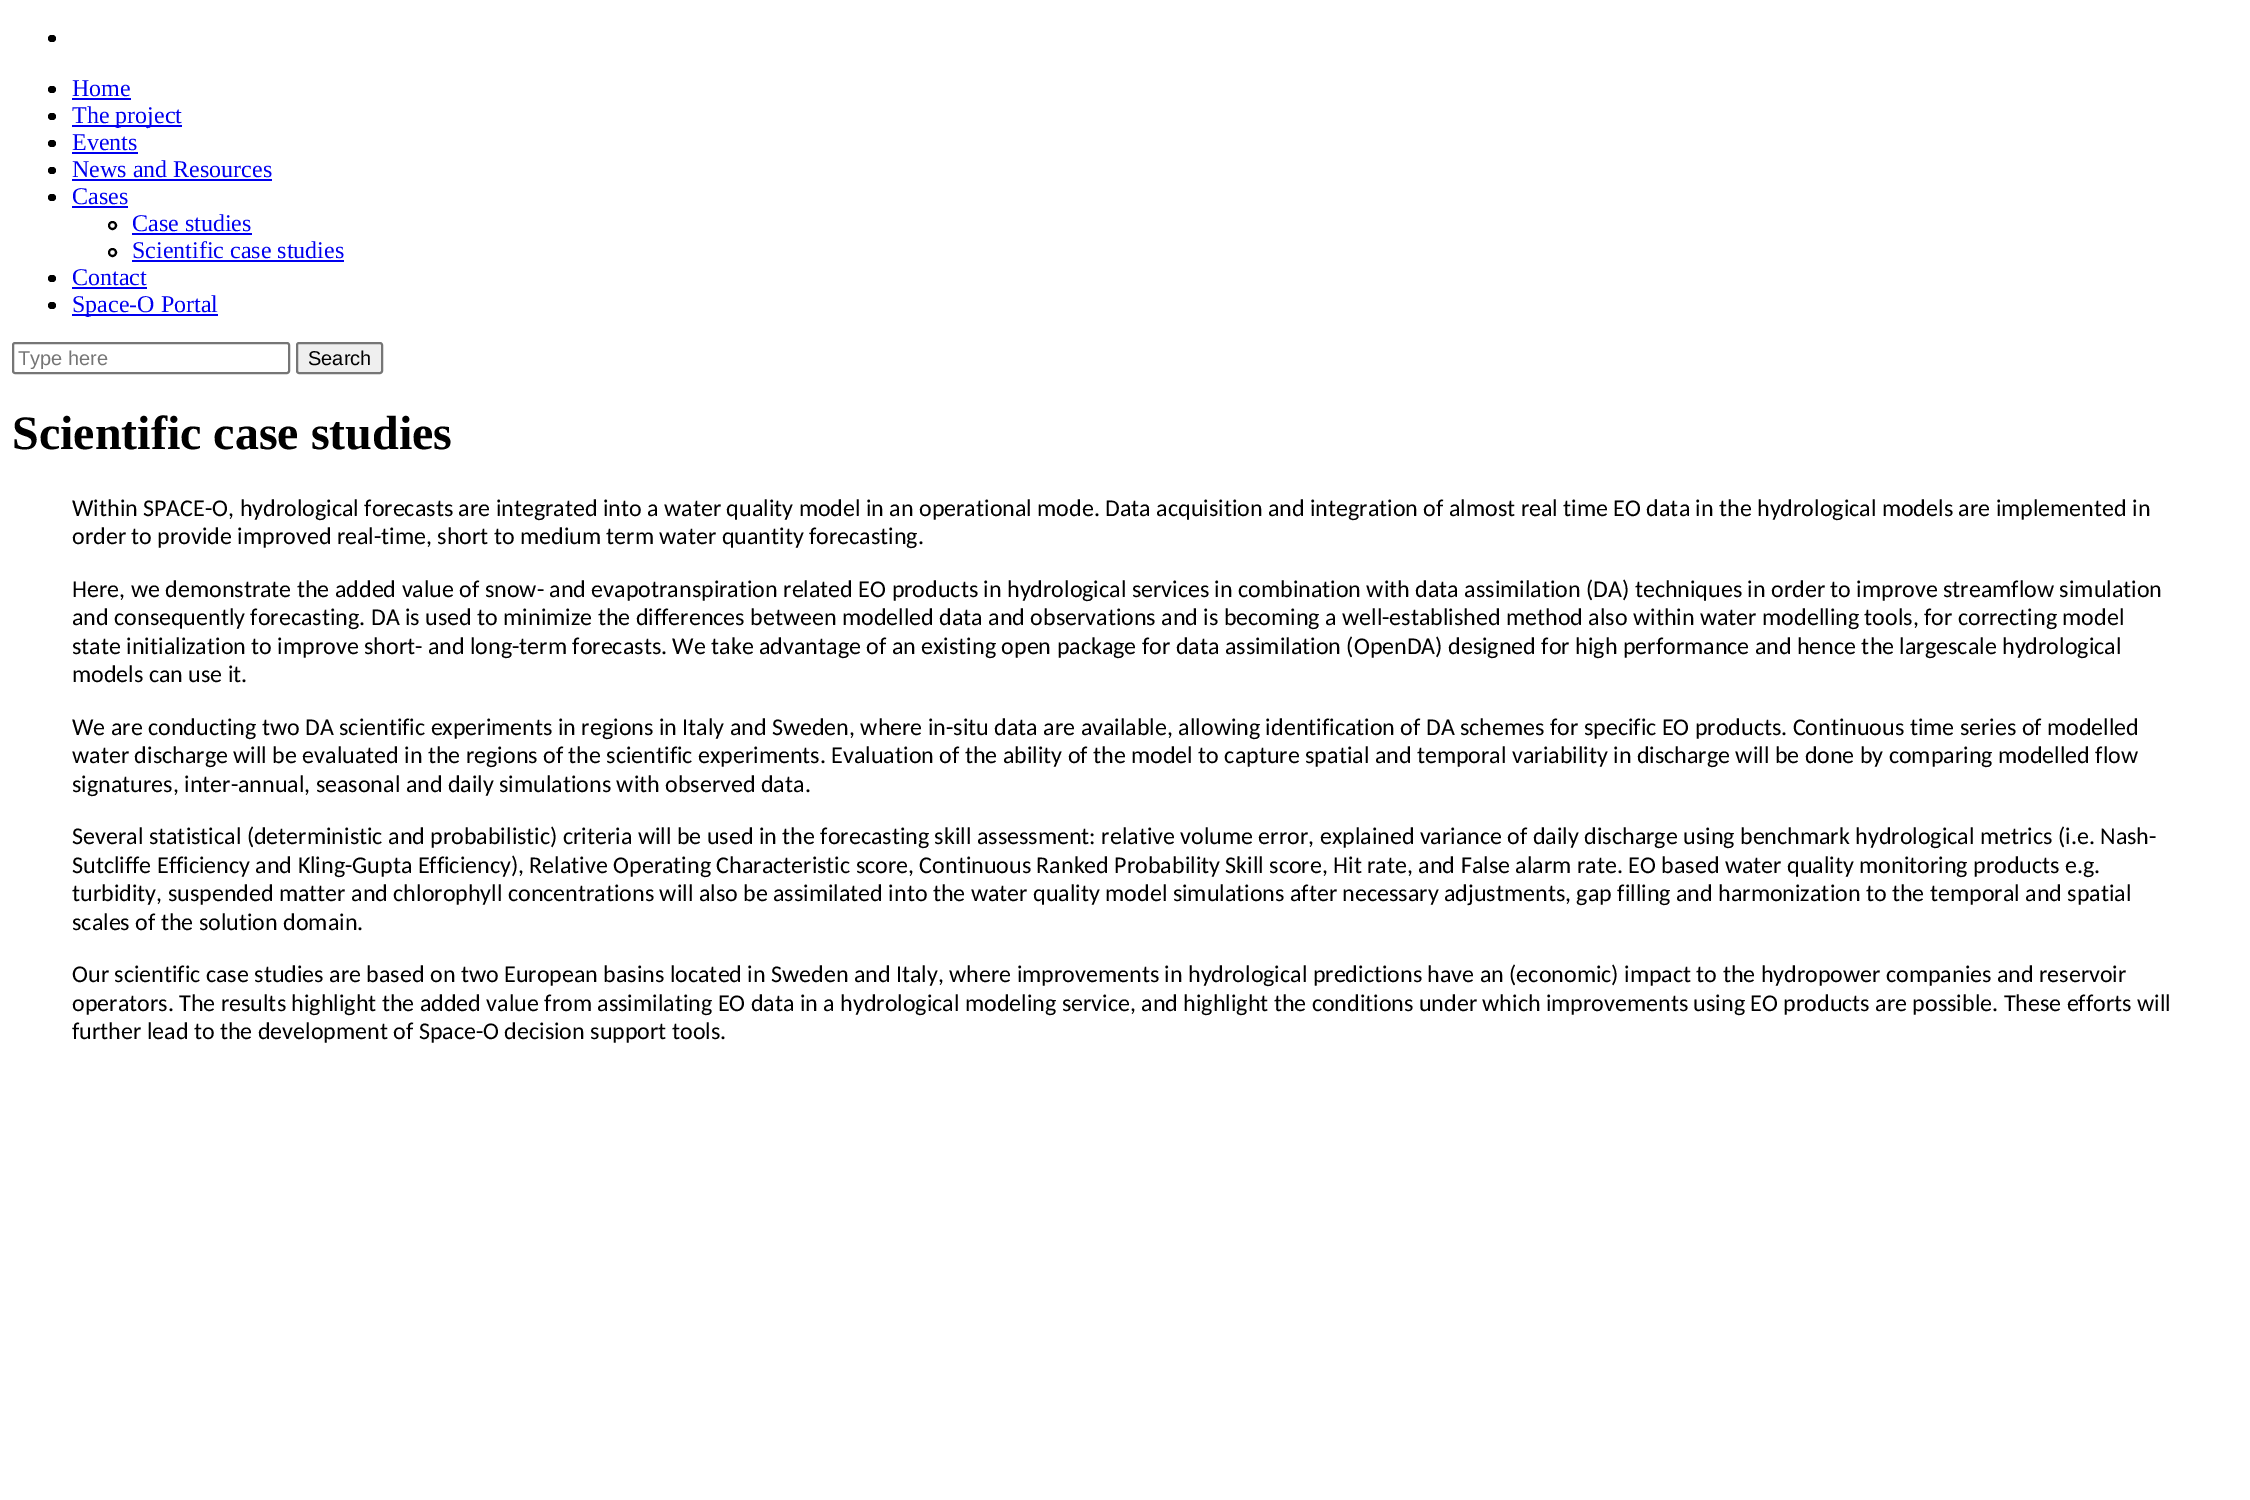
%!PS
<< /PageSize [2250 1500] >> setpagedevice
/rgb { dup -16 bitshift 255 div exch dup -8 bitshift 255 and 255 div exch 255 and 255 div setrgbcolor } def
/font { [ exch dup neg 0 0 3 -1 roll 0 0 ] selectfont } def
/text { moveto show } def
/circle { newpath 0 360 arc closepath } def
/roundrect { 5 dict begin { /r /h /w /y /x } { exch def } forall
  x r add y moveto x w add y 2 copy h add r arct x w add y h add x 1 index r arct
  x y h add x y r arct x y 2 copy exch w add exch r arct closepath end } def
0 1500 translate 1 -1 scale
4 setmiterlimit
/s1 { /LiberationSerif-Regular 24 font 16#0000EE rgb } def
/s2 { /LiberationSans-Regular 20 font 16#757575 rgb } def
/s3 { /LiberationSans-Regular 20 font 16#000000 rgb } def
/s4 { /LiberationSerif-Bold 48 font 16#000000 rgb } def
/s5 { /Carlito-Regular 24 font 16#000000 rgb } def
16#FFFFFF rgb
0 0 2250 1500 rectfill
16#000000 rgb
48 35 8 7 3.5 roundrect fill
48 86 8 7 3.5 roundrect fill
s1
(Home) 72 96 text
72 98 59 2 rectfill
16#000000 rgb
48 113 8 7 3.5 roundrect fill
16#0000EE rgb
72 125 110 2 rectfill
(The project) 72 123 text
16#000000 rgb
48 140 8 7 3.5 roundrect fill
s1
(Events) 72 150 text
72 152 66 2 rectfill
16#000000 rgb
48 167 8 7 3.5 roundrect fill
s1
(News and Resources) 72 177 text
72 179 200 2 rectfill
16#000000 rgb
48 194 8 7 3.5 roundrect fill
s1
(Cases) 72 204 text
72 206 56 2 rectfill
16#000000 rgb
2 setlinewidth
112.5 225.5 3.5 circle stroke
s1
(Case studies) 132 231 text
132 233 120 2 rectfill
16#000000 rgb
112.5 252.5 3.5 circle stroke
s1
(Scientific case studies) 132 258 text
132 260 212 2 rectfill
16#000000 rgb
48 275 8 7 3.5 roundrect fill
s1
(Contact) 72 285 text
72 287 75 2 rectfill
16#000000 rgb
48 302 8 7 3.5 roundrect fill
16#0000EE rgb
72 314 146 2 rectfill
(Space-O Portal) 72 312 text
16#767676 rgb
13 343 276 30 2 roundrect stroke
gsave
18 347 266 22 rectclip
s2
(Type here) 18 365 text
grestore
16#EFEFEF rgb
297 343 85 30 2 roundrect gsave fill grestore
16#767676 rgb
stroke
s3
(Search) 308 365 text
s4
(Scientific case studies) 12 449 text
s5
(Within SPACE-O, hydrological forecasts are integrated into a water quality model in an operational mode. Data acquisition and integration of almost real time EO data in the hydrological models are implemented in) 72 516 text
(order to provide improved real-time, short to medium term water quantity forecasting.) 72 544 text
(Here, we demonstrate the added value of snow- and evapotranspiration related EO products in hydrological services in combination with data assimilation \(DA\) techniques in order to improve streamflow simulation) 72 597 text
(and consequently forecasting. DA is used to minimize the differences between modelled data and observations and is becoming a well-established method also within water modelling tools, for correcting model) 72 625 text
(state initialization to improve short- and long-term forecasts. We take advantage of an existing open package for data assimilation \(OpenDA\) designed for high performance and hence the largescale hydrological) 72 654 text
(models can use it.) 72 682 text
(We are conducting two DA scientific experiments in regions in Italy and Sweden, where in-situ data are available, allowing identification of DA schemes for specific EO products. Continuous time series of modelled) 72 735 text
(water discharge will be evaluated in the regions of the scientific experiments. Evaluation of the ability of the model to capture spatial and temporal variability in discharge will be done by comparing modelled flow) 72 763 text
(signatures, inter-annual, seasonal and daily simulations with observed data.) 72 792 text
(Several statistical \(deterministic and probabilistic\) criteria will be used in the forecasting skill assessment: relative volume error, explained variance of daily discharge using benchmark hydrological metrics \(i.e. Nash-) 72 844 text
(Sutcliffe Efficiency and Kling-Gupta Efficiency\), Relative Operating Characteristic score, Continuous Ranked Probability Skill score, Hit rate, and False alarm rate. EO based water quality monitoring products e.g.) 72 873 text
(turbidity, suspended matter and chlorophyll concentrations will also be assimilated into the water quality model simulations after necessary adjustments, gap filling and harmonization to the temporal and spatial) 72 901 text
(scales of the solution domain.) 72 930 text
(Our scientific case studies are based on two European basins located in Sweden and Italy, where improvements in hydrological predictions have an \(economic\) impact to the hydropower companies and reservoir) 72 982 text
(operators. The results highlight the added value from assimilating EO data in a hydrological modeling service, and highlight the conditions under which improvements using EO products are possible. These efforts will) 72 1011 text
(further lead to the development of Space-O decision support tools.) 72 1039 text
showpage
